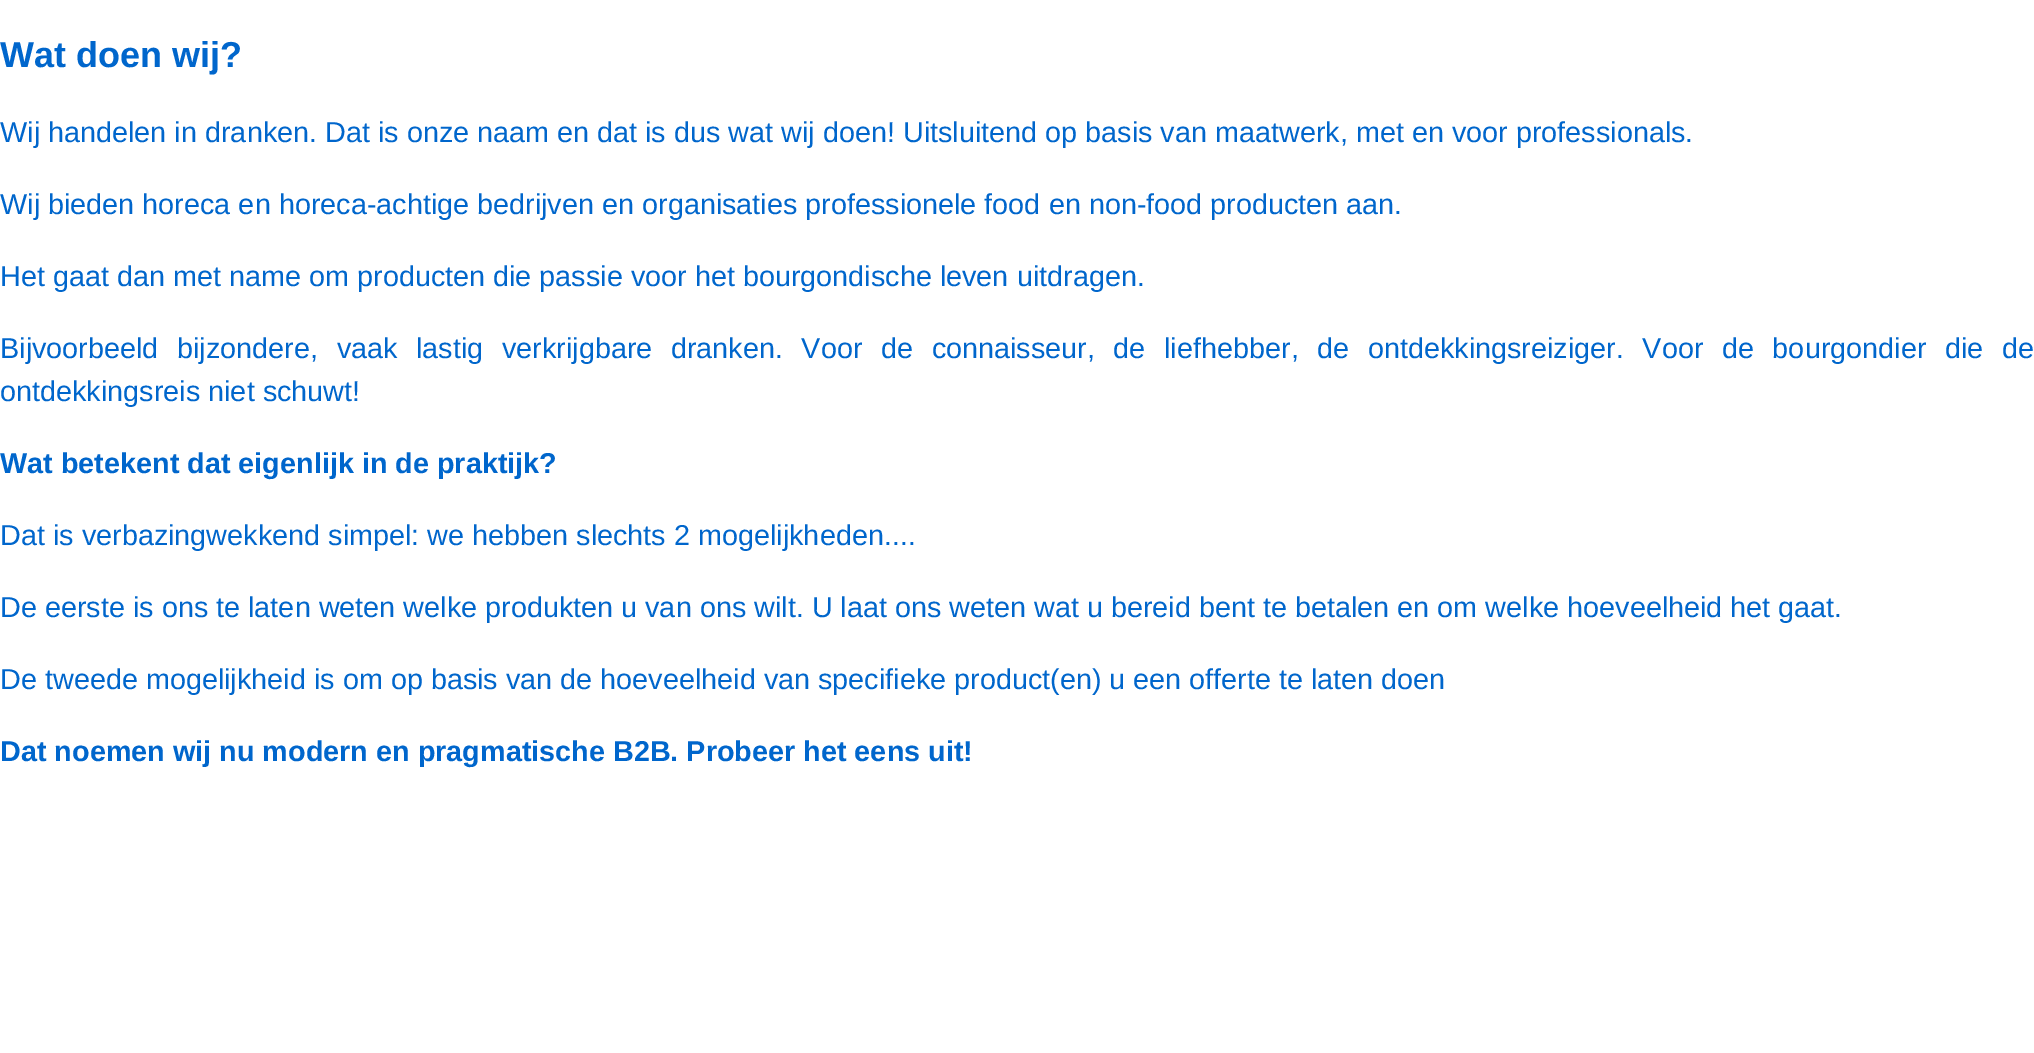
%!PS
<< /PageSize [2034 1053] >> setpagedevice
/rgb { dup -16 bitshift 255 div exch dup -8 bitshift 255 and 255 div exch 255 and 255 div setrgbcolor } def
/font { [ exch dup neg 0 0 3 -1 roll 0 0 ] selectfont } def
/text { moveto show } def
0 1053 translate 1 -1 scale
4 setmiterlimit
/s1 { /LiberationSans-Bold 36 font 16#0066CC rgb } def
/s2 { /LiberationSans-Regular 28.8 font 16#0066CC rgb } def
/s3 { /LiberationSans-Bold 28.8 font 16#0066CC rgb } def
16#FFFFFF rgb
0 0 2034 1053 rectfill
s1
(Wat doen wij?) 0 67 text
s2
(Wij handelen in dranken. Dat is onze naam en dat is dus wat wij doen! Uitsluitend op basis van maatwerk, met en voor professionals.) 0 142 text
(Wij bieden horeca en horeca-achtige bedrijven en organisaties professionele food en non-food producten aan.) 0 214 text
(Het gaat dan met name om producten die passie voor het bourgondische leven uitdragen.) 0 286 text
0 358 moveto 10.6 0 32 (Bijvoorbeeld bijzondere, vaak lastig verkrijgbare dranken. Voor de connaisseur, de liefhebber, de ontdekkingsreiziger. Voor de bourgondier die de) widthshow
(ontdekkingsreis niet schuwt!) 0 401 text
s3
(Wat betekent dat eigenlijk in de praktijk?) 0 473 text
s2
(Dat is verbazingwekkend simpel: we hebben slechts 2 mogelijkheden....) 0 545 text
(De eerste is ons te laten weten welke produkten u van ons wilt. U laat ons weten wat u bereid bent te betalen en om welke hoeveelheid het gaat.) 0 617 text
(De tweede mogelijkheid is om op basis van de hoeveelheid van specifieke product\(en\) u een offerte te laten doen) 0 689 text
s3
(Dat noemen wij nu modern en pragmatische B2B. Probeer het eens uit!) 0 761 text
showpage
